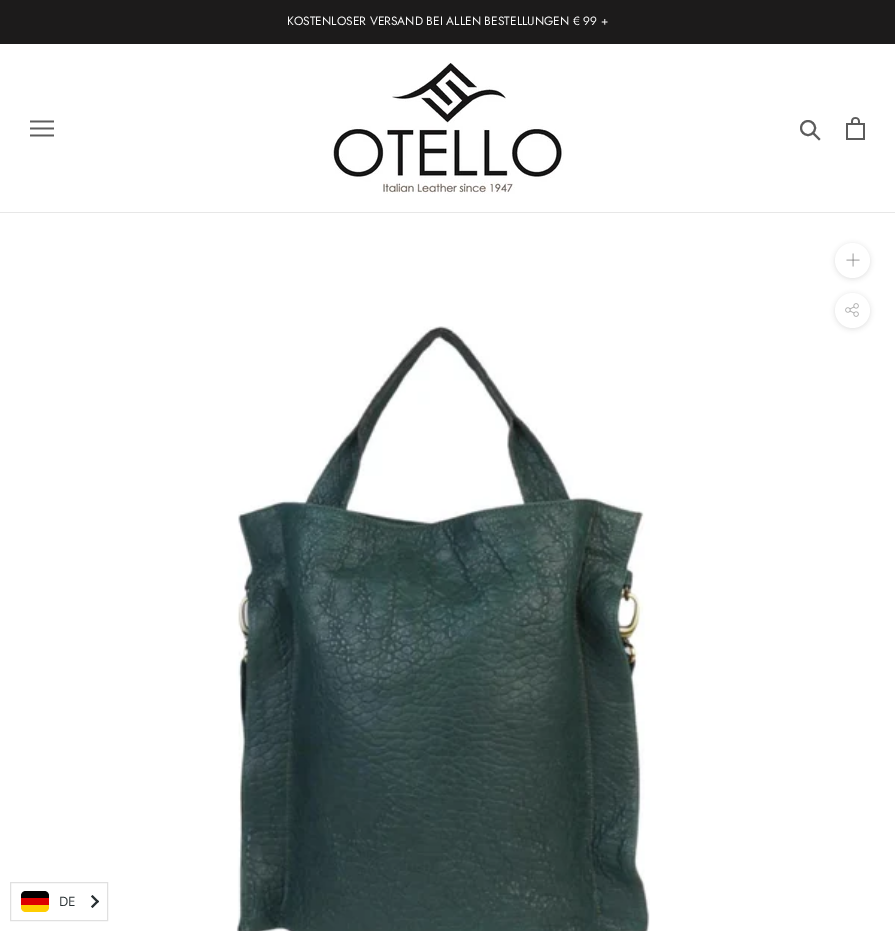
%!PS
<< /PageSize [895 931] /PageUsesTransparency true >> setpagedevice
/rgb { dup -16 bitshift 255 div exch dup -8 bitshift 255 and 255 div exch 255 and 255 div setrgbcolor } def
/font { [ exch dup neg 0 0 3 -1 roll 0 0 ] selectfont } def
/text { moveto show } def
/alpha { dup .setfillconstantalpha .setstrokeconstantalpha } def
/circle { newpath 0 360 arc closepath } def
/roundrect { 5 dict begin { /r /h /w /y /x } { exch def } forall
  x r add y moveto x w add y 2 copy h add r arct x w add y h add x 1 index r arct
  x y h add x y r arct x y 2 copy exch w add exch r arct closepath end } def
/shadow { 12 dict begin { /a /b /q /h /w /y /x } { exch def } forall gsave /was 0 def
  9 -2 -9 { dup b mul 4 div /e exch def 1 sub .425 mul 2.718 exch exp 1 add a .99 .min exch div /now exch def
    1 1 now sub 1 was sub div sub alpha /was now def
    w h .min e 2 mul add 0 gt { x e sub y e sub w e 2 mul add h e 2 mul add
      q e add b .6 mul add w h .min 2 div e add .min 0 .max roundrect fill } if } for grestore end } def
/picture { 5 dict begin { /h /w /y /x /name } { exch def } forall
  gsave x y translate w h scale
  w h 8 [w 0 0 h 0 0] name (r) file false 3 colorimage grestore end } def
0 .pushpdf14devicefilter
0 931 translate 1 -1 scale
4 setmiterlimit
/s1 { /Jost-Regular 12 font 16#FAFAFA rgb } def
/s2 { /OpenSans-Regular 13 font 16#272E31 rgb } def
16#FFFFFF rgb
0 0 895 931 rectfill
16#1C1B1B rgb
0 0 895 44 rectfill
s1
(KOSTENLOSER VERSAND BEI ALLEN BESTELLUNGEN € 99 +) 287 25 text
16#E7E7E7 rgb
0 212 895 1 rectfill
(pic1.raw) 30 120 24 17 picture
(pic2.raw) 331 62 233 132 picture
16#5C5C5C rgb
2 setlinewidth
2 setlinecap
819 139 moveto 813.5 133.5 lineto stroke
0 setlinecap
808 128 7 circle stroke
(pic3.raw) 846 117 19 23 picture
16#363636 rgb
835 244 35 35 17.5 2.5 0.15 shadow
16#FFFFFF rgb
852.5 260.5 17.5 circle fill
16#AEAEAE rgb
0.9 setlinewidth
2 setlinecap
853 254 moveto 853 266 lineto stroke
0.5 alpha
16#5C5C5C rgb
847 260 moveto 859 260 lineto stroke
1 alpha
16#363636 rgb
835 294 35 35 17.5 2.5 0.15 shadow
16#FFFFFF rgb
852.5 310.5 17.5 circle fill
(pic4.raw) 845 303 14 14 picture
(pic5.raw) 236 326 414 605 picture
16#E0E0E0 rgb
1 setlinewidth
0 setlinecap
10.5 882.5 97 38 rectstroke
16#FFCE00 rgb
21 905 moveto 49 905 lineto 49 907 lineto 49 910 47 912 44 912 curveto 26 912 lineto 23 912 21 910 21 907 curveto closepath fill
16#000000 rgb
26 891 moveto 44 891 lineto 47 891 49 893 49 896 curveto 49 898 lineto 21 898 lineto 21 896 lineto 21 893 23 891 26 891 curveto closepath fill
16#DD0000 rgb
21 898 28 7 rectfill
s2
(DE) 59 906 text
92.5 895 moveto 99 901.5 lineto 97.5 903 lineto 91 896.5 lineto closepath fill
97.5 900 moveto 99 901.5 lineto 92.5 908 lineto 91 906.5 lineto closepath fill
.poppdf14devicefilter showpage
